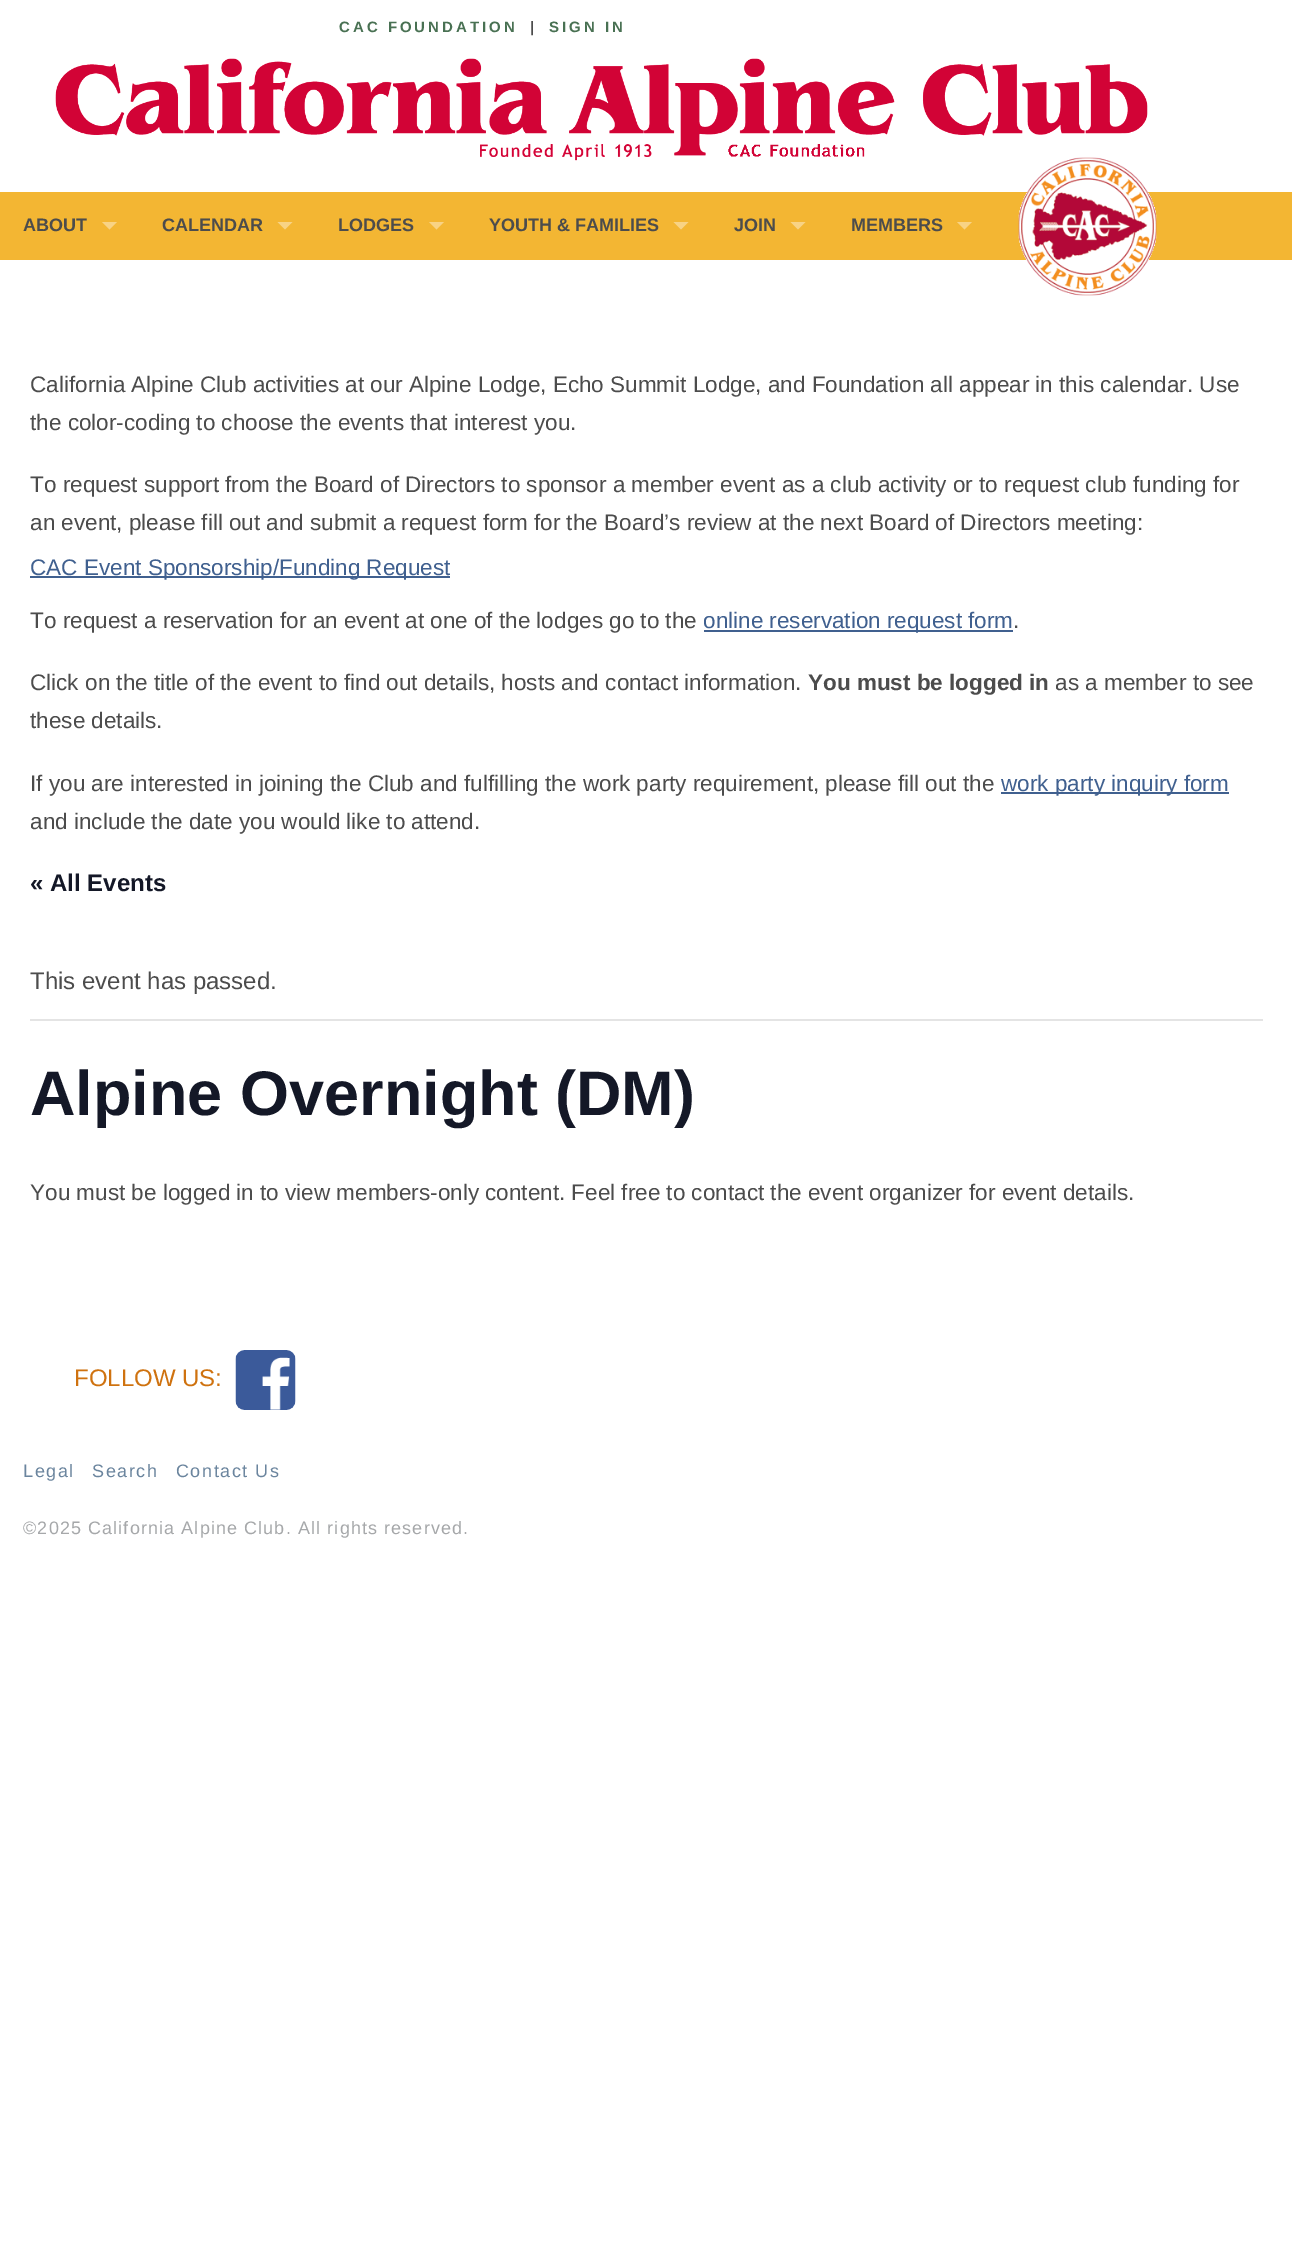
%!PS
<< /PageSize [1292 2267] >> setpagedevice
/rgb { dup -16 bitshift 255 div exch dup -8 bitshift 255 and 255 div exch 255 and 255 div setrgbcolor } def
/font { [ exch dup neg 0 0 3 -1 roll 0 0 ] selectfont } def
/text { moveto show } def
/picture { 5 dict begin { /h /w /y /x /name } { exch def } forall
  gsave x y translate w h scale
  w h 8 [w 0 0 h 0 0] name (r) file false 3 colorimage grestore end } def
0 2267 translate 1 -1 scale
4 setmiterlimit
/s1 { /LiberationSans-Bold 18 font 16#4C4C4C rgb } def
/s2 { /LiberationSans-Regular 22.5 font 16#4C4C4C rgb } def
/s3 { /LiberationSans-Regular 22.5 font 16#40608F rgb } def
/s4 { /LiberationSans-Bold 22.5 font 16#4C4C4C rgb } def
/s5 { /LiberationSans-Bold 24 font 16#141827 rgb } def
/s6 { /LiberationSans-Regular 24 font 16#4C4C4C rgb } def
/s7 { /LiberationSans-Bold 63 font 16#141827 rgb } def
/s8 { /LiberationSans-Regular 24 font 16#CF720F rgb } def
16#FFFFFF rgb
0 0 1292 2267 rectfill
/LiberationSans-Bold 15 font
16#497153 rgb
339 32 moveto 3 0 (CAC FOUNDATION) ashow
16#4C4C4C rgb
530 32 moveto 3 0 (|) ashow
16#497153 rgb
549 32 moveto 3 0 (SIGN IN) ashow
(pic1.raw) 55 58 1093 103 picture
16#F3B633 rgb
0 192 1292 68 rectfill
s1
(ABOUT) 23 231 text
16#F8D385 rgb
102 222 moveto 117 222 lineto 109.5 229.5 lineto closepath fill
s1
(CALENDAR) 162 231 text
16#F8D385 rgb
277.5 222 moveto 292.5 222 lineto 285 229.5 lineto closepath fill
s1
(LODGES) 338 231 text
16#F8D385 rgb
429 222 moveto 444 222 lineto 436.5 229.5 lineto closepath fill
s1
(YOUTH & FAMILIES) 489 231 text
16#F8D385 rgb
673.5 222 moveto 688.5 222 lineto 681 229.5 lineto closepath fill
s1
(JOIN) 734 231 text
16#F8D385 rgb
790.5 222 moveto 805.5 222 lineto 798 229.5 lineto closepath fill
s1
(MEMBERS) 851 231 text
16#F8D385 rgb
957 222 moveto 972 222 lineto 964.5 229.5 lineto closepath fill
(pic2.raw) 1018 157 139 139 picture
s2
(California Alpine Club activities at our Alpine Lodge, Echo Summit Lodge, and Foundation all appear in this calendar. Use) 30 392 text
(the color-coding to choose the events that interest you.) 30 430 text
(To request support from the Board of Directors to sponsor a member event as a club activity or to request club funding for) 30 492 text
(an event, please fill out and submit a request form for the Board’s review at the next Board of Directors meeting:) 30 530 text
16#40608F rgb
30 576 420 2 rectfill
(CAC Event Sponsorship/Funding Request) 30 575 text
s2
(To request a reservation for an event at one of the lodges go to the) 30 628 text
16#40608F rgb
704 630 309 2 rectfill
(online reservation request form) 703 628 text
s2
(.) 1013 628 text
(Click on the title of the event to find out details, hosts and contact information.) 30 690 text
s4
(You must be logged in) 808 690 text
s2
(as a member to see) 1055 690 text
(these details.) 30 728 text
(If you are interested in joining the Club and fulfilling the work party requirement, please fill out the) 30 791 text
16#40608F rgb
1001 792 228 2 rectfill
(work party inquiry form) 1001 791 text
s2
(and include the date you would like to attend.) 30 829 text
s5
(« All Events) 30 891 text
16#E4E4E4 rgb
30 1019 1233 2 rectfill
s6
(This event has passed.) 30 989 text
s7
(Alpine Overnight \(DM\)) 30 1115 text
s2
(You must be logged in to view members-only content. Feel free to contact the event organizer for event details.) 30 1200 text
s8
(FOLLOW US:) 74 1386 text
(pic3.raw) 235 1350 61 60 picture
/LiberationSans-Regular 18 font
16#6B859E rgb
23 1477 moveto 1.5 0 (Legal) ashow
92 1477 moveto 1.5 0 (Search) ashow
176 1477 moveto 1.5 0 (Contact Us) ashow
16#A6A8AA rgb
23 1534 moveto 1.12 0 (©2025 California Alpine Club. All rights reserved.) ashow
showpage
